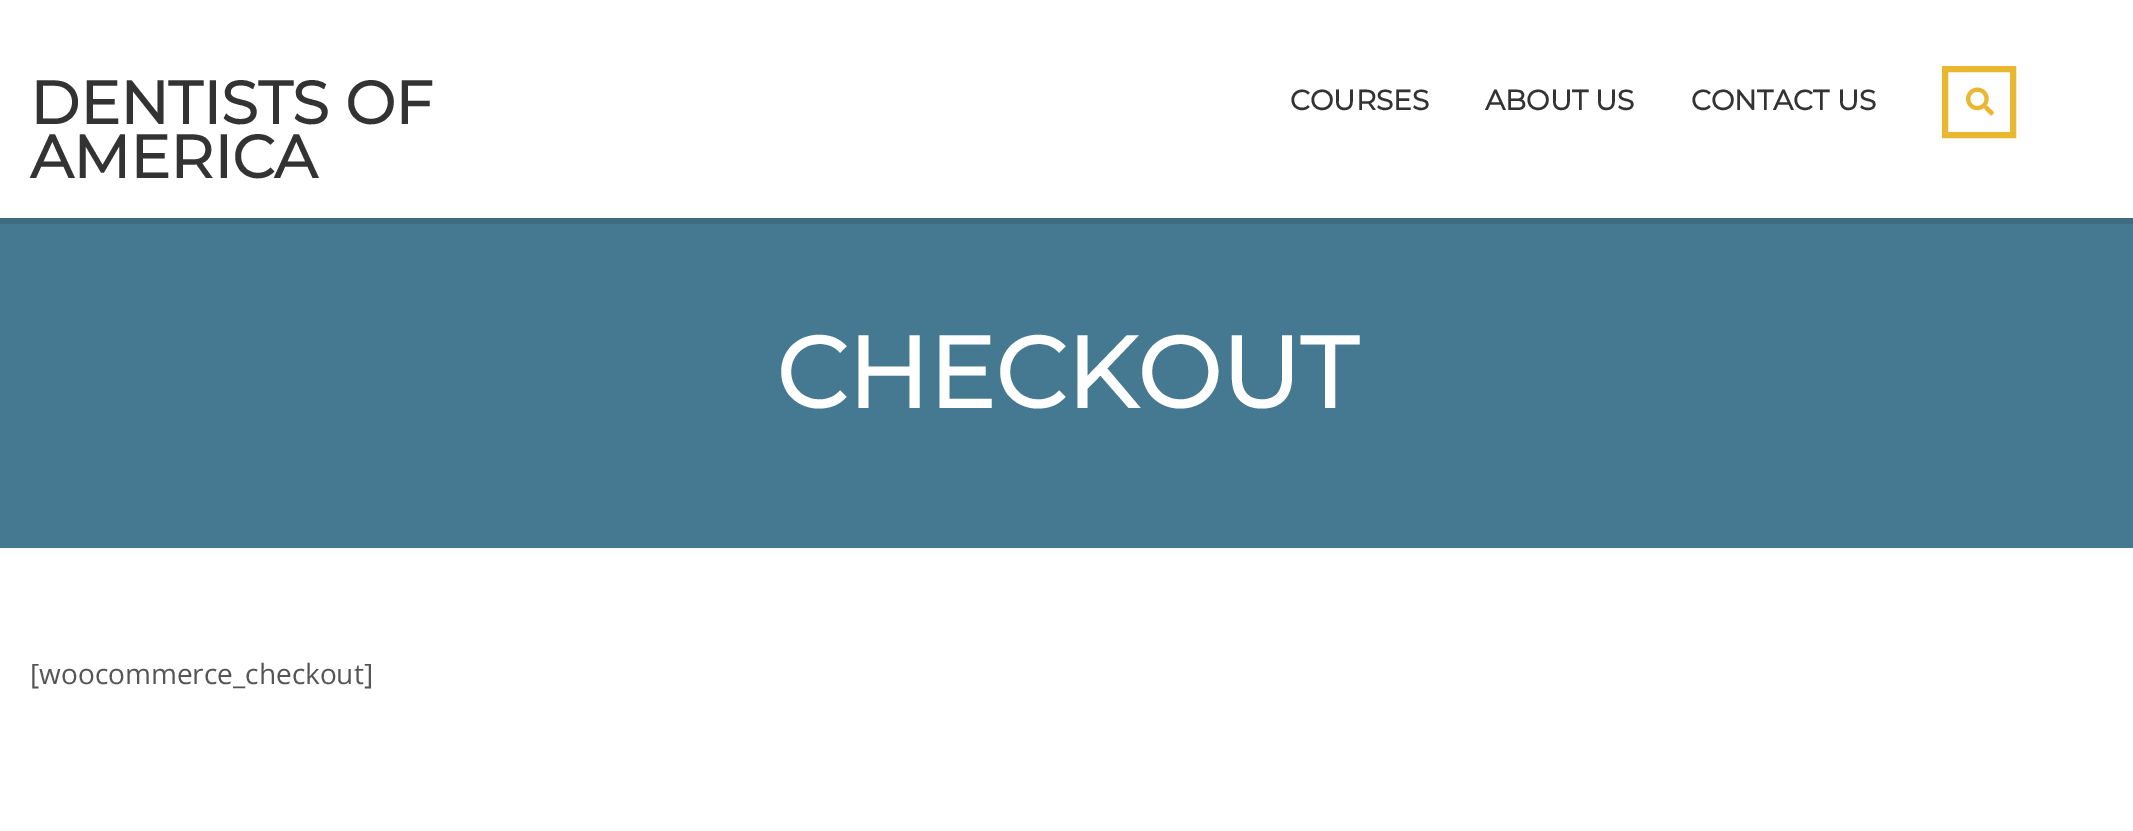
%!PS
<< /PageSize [2133 831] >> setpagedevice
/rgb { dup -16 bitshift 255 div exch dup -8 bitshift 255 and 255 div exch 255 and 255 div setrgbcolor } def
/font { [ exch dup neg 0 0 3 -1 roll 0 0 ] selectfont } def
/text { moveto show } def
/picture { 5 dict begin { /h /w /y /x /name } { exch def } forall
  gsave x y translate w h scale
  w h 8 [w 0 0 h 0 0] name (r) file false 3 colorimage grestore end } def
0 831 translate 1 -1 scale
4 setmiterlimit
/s1 { /Montserrat-Bold 60 font 16#333333 rgb } def
/s2 { /Montserrat-Bold 28 font 16#333333 rgb } def
/s3 { /Montserrat-Bold 100 font 16#FFFFFF rgb } def
/s4 { /OpenSans-Regular 28 font 16#555555 rgb } def
16#FFFFFF rgb
0 0 2133 831 rectfill
s1
(DENTISTS OF) 30 124 text
(AMERICA) 30 178 text
s2
(COURSES) 1290 110 text
(ABOUT US) 1485 110 text
(CONTACT US) 1691 110 text
16#EAB830 rgb
6 setlinewidth
1945 69 68 66 rectstroke
(pic1.raw) 1966 87 28 29 picture
16#3E6D83 rgb
0 218 2133 6 rectfill
16#457992 rgb
0 224 2133 324 rectfill
s3
(CHECKOUT) 776 408 text
s4
([woocommerce_checkout]) 30 684 text
showpage
